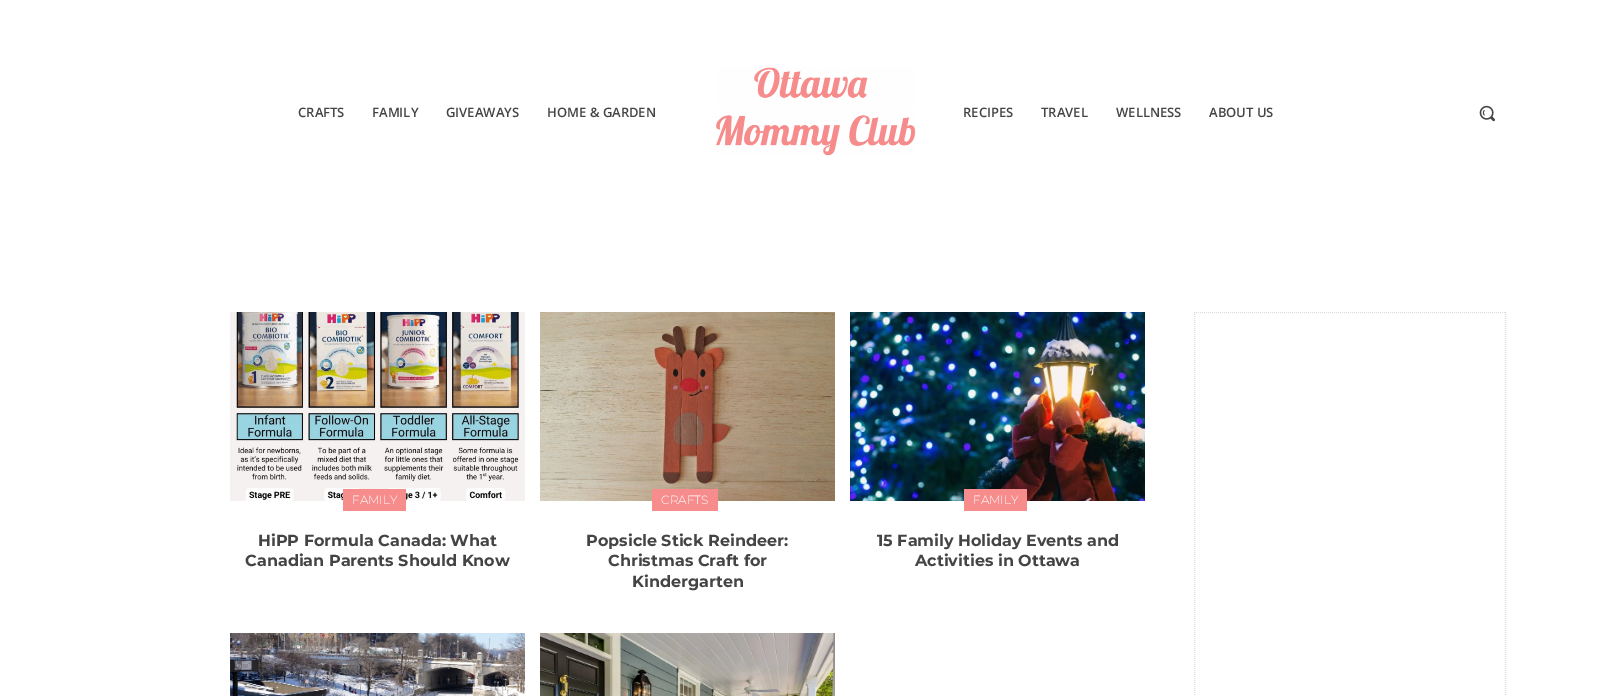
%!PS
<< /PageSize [1619 696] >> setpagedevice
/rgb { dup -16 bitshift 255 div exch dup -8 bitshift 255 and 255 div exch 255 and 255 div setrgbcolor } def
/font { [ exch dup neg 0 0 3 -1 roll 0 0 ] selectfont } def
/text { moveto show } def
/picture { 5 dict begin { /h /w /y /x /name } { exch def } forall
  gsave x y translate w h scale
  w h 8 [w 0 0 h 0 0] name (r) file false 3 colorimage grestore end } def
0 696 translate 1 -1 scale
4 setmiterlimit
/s1 { /OpenSans-SemiBold 13 font 16#444444 rgb } def
/s2 { /Montserrat-Light 12 font 16#FFFFFF rgb } def
/s3 { /Montserrat-Bold 16 font 16#444444 rgb } def
16#FFFFFF rgb
0 0 1619 696 rectfill
s1
(CRAFTS) 298 117 text
(FAMILY) 372 117 text
(GIVEAWAYS) 446 117 text
(HOME & GARDEN) 547 117 text
(pic1.raw) 716 67 200 89 picture
(RECIPES) 963 117 text
(TRAVEL) 1041 117 text
(WELLNESS) 1116 117 text
(ABOUT US) 1209 117 text
(pic2.raw) 1479 105 16 17 picture
(pic3.raw) 230 312 295 189 picture
16#F78C8C rgb
343 489 63 22 rectfill
s2
(FAMILY) 352 504 text
s3
(HiPP Formula Canada: What) 258 546 text
(Canadian Parents Should Know) 245 566 text
(pic4.raw) 540 312 295 189 picture
16#F78C8C rgb
652 489 66 22 rectfill
s2
(CRAFTS) 661 504 text
s3
(Popsicle Stick Reindeer:) 586 546 text
(Christmas Craft for) 608 566 text
(Kindergarten) 632 587 text
(pic5.raw) 850 312 295 189 picture
16#F78C8C rgb
964 489 63 22 rectfill
s2
(FAMILY) 973 504 text
s3
(15 Family Holiday Events and) 877 546 text
(Activities in Ottawa) 915 566 text
(pic6.raw) 230 633 295 63 picture
(pic7.raw) 540 633 295 63 picture
16#DDDDDD rgb
[1 1] 0 setdash
1194 312.5 moveto 1506 312.5 lineto stroke
1505.5 312 moveto 1505.5 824 lineto stroke
1194.5 312 moveto 1194.5 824 lineto stroke
showpage
